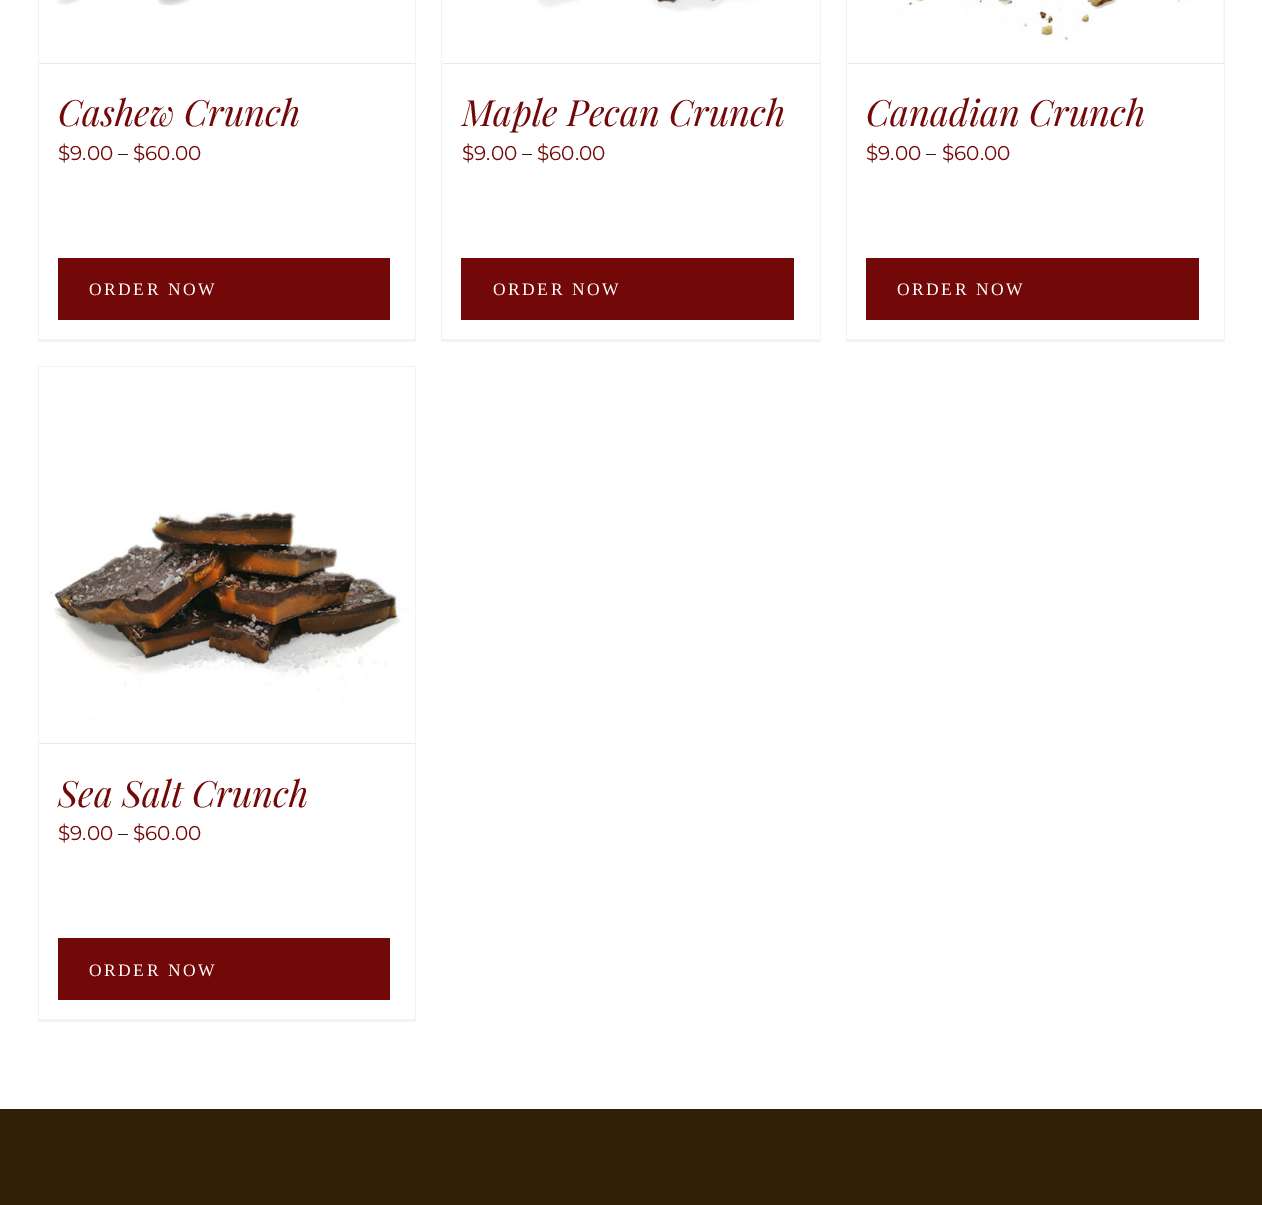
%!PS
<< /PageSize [1262 1205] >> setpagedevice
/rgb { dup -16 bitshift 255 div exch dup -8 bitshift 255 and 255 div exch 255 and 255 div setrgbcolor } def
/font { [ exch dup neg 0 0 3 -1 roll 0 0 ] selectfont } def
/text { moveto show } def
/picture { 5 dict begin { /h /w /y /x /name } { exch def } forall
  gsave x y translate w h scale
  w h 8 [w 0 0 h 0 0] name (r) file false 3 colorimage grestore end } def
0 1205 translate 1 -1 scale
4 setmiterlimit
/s1 { /PlayfairDisplay-Italic 36.25 font 16#730808 rgb } def
/s2 { /Montserrat-Regular 20 font 16#730808 rgb } def
/s3 { /Montserrat-Regular 20 font 16#2C2108 rgb } def
16#FFFFFF rgb
0 0 1262 1205 rectfill
16#F2F3F5 rgb
415 0 1 341 rectfill
38 339 378 3 rectfill
38 0 1 341 rectfill
16#E2E2E2 rgb
39 63 376 1 rectfill
(pic1.raw) 39 0 376 64 picture
s1
(Cashew Crunch) 58 126 text
s2
($9.00) 58 160 text
s3
(–) 118 160 text
s2
($60.00) 133 160 text
58 258 332 62 rectfill
/LiberationSerif-Regular 17.5 font
16#FFFFFF rgb
89 295 moveto 2.5 0 (ORDER NOW) ashow
16#F2F3F5 rgb
820 0 1 341 rectfill
441 339 380 3 rectfill
441 0 1 341 rectfill
16#E2E2E2 rgb
443 63 377 1 rectfill
(pic2.raw) 443 0 377 64 picture
s1
(Maple Pecan Crunch) 462 126 text
s2
($9.00) 462 160 text
s3
(–) 522 160 text
s2
($60.00) 537 160 text
461 258 333 62 rectfill
/LiberationSerif-Regular 17.5 font
16#FFFFFF rgb
493 295 moveto 2.5 0 (ORDER NOW) ashow
16#F2F3F5 rgb
1224 0 1 341 rectfill
846 339 379 3 rectfill
846 0 1 341 rectfill
16#E2E2E2 rgb
848 0 376 64 rectfill
(pic3.raw) 848 0 376 64 picture
s1
(Canadian Crunch) 866 126 text
s2
($9.00) 866 160 text
s3
(–) 926 160 text
s2
($60.00) 942 160 text
866 258 333 62 rectfill
/LiberationSerif-Regular 17.5 font
16#FFFFFF rgb
897 295 moveto 2.5 0 (ORDER NOW) ashow
16#F2F3F5 rgb
38 366 378 1 rectfill
415 366 1 655 rectfill
38 1019 378 3 rectfill
38 366 1 655 rectfill
16#E2E2E2 rgb
39 743 376 1 rectfill
(pic4.raw) 39 368 376 376 picture
s1
(Sea Salt Crunch) 58 807 text
s2
($9.00) 58 840 text
s3
(–) 118 840 text
s2
($60.00) 133 840 text
58 938 332 62 rectfill
/LiberationSerif-Regular 17.5 font
16#FFFFFF rgb
89 976 moveto 2.5 0 (ORDER NOW) ashow
16#2F1F06 rgb
0 1109 1262 96 rectfill
showpage
